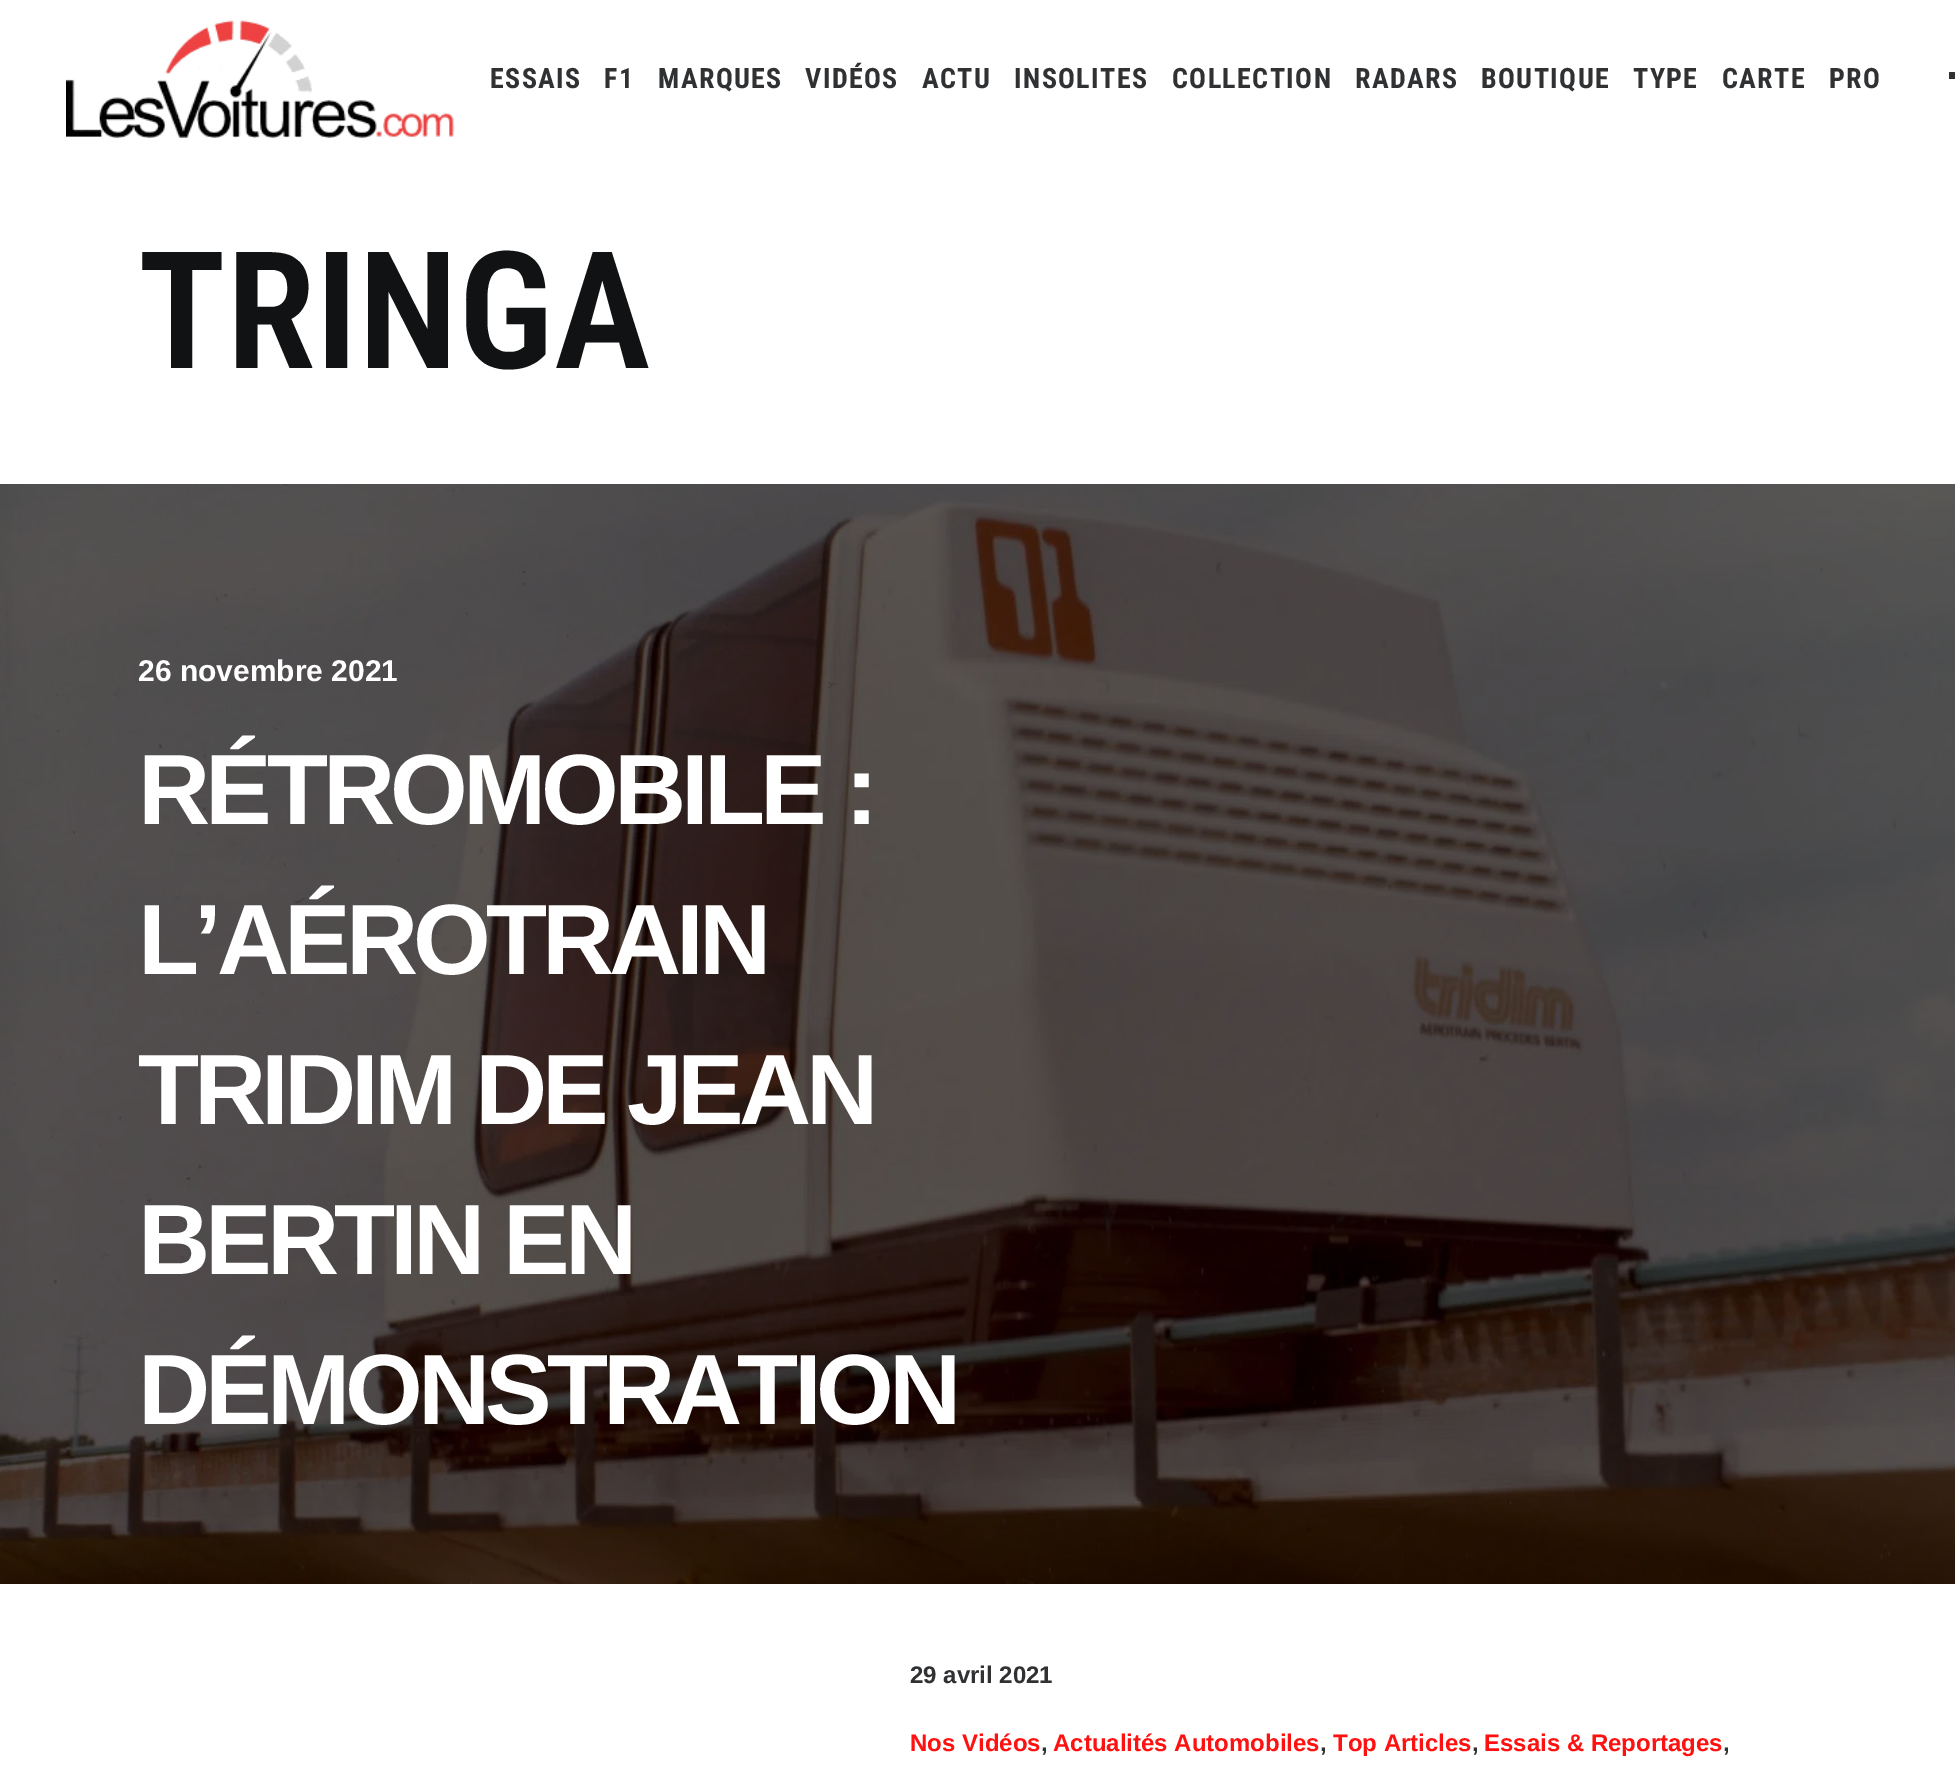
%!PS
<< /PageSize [1955 1773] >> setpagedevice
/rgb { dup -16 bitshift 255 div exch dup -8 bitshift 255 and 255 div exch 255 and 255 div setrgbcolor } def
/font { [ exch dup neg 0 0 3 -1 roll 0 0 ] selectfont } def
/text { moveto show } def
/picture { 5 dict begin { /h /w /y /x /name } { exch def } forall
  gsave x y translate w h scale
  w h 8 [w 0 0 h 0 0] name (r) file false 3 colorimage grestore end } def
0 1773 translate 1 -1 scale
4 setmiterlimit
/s1 { /RobotoCondensed-SemiBold 163 font 16#101213 rgb } def
/s2 { /LiberationSans-Bold 30 font 16#FFFFFF rgb } def
/s3 { /LiberationSans-Bold 24 font 16#303133 rgb } def
/s4 { /LiberationSans-Bold 24 font 16#FF1111 rgb } def
16#FFFFFF rgb
0 0 1955 1773 rectfill
(pic1.raw) 66 20 389 118 picture
/RobotoCondensed-Bold 28 font
16#303133 rgb
490 88 moveto 1.4 0 (ESSAIS) ashow
604 88 moveto 1.4 0 (F1) ashow
658 88 moveto 1.4 0 (MARQUES) ashow
805 88 moveto 1.4 0 (VIDÉOS) ashow
922 88 moveto 1.4 0 (ACTU) ashow
1014 88 moveto 1.4 0 (INSOLITES) ashow
1172 88 moveto 1.4 0 (COLLECTION) ashow
1355 88 moveto 1.4 0 (RADARS) ashow
1481 88 moveto 1.4 0 (BOUTIQUE) ashow
1633 88 moveto 1.4 0 (TYPE) ashow
1722 88 moveto 1.4 0 (CARTE) ashow
1829 88 moveto 1.4 0 (PRO) ashow
1949 72 6 7 rectfill
s1
(TRINGA) 138 368 text
(pic2.raw) 0 484 1955 1100 picture
s2
(26 novembre 2021) 138 681 text
/LiberationSans-Bold 100 font
138 824 moveto -5 0 (RÉTROMOBILE :) ashow
138 974 moveto -5 0 (L’AÉROTRAIN) ashow
138 1124 moveto -5 0 (TRIDIM DE JEAN) ashow
138 1274 moveto -5 0 (BERTIN EN) ashow
138 1424 moveto -5 0 (DÉMONSTRATION) ashow
s3
(29 avril 2021) 910 1683 text
s4
(Nos Vidéos) 910 1751 text
s3
(,) 1041 1751 text
s4
(Actualités Automobiles) 1053 1751 text
s3
(,) 1320 1751 text
s4
(Top Articles) 1333 1751 text
s3
(,) 1472 1751 text
s4
(Essais & Reportages) 1484 1751 text
s3
(,) 1723 1751 text
showpage
